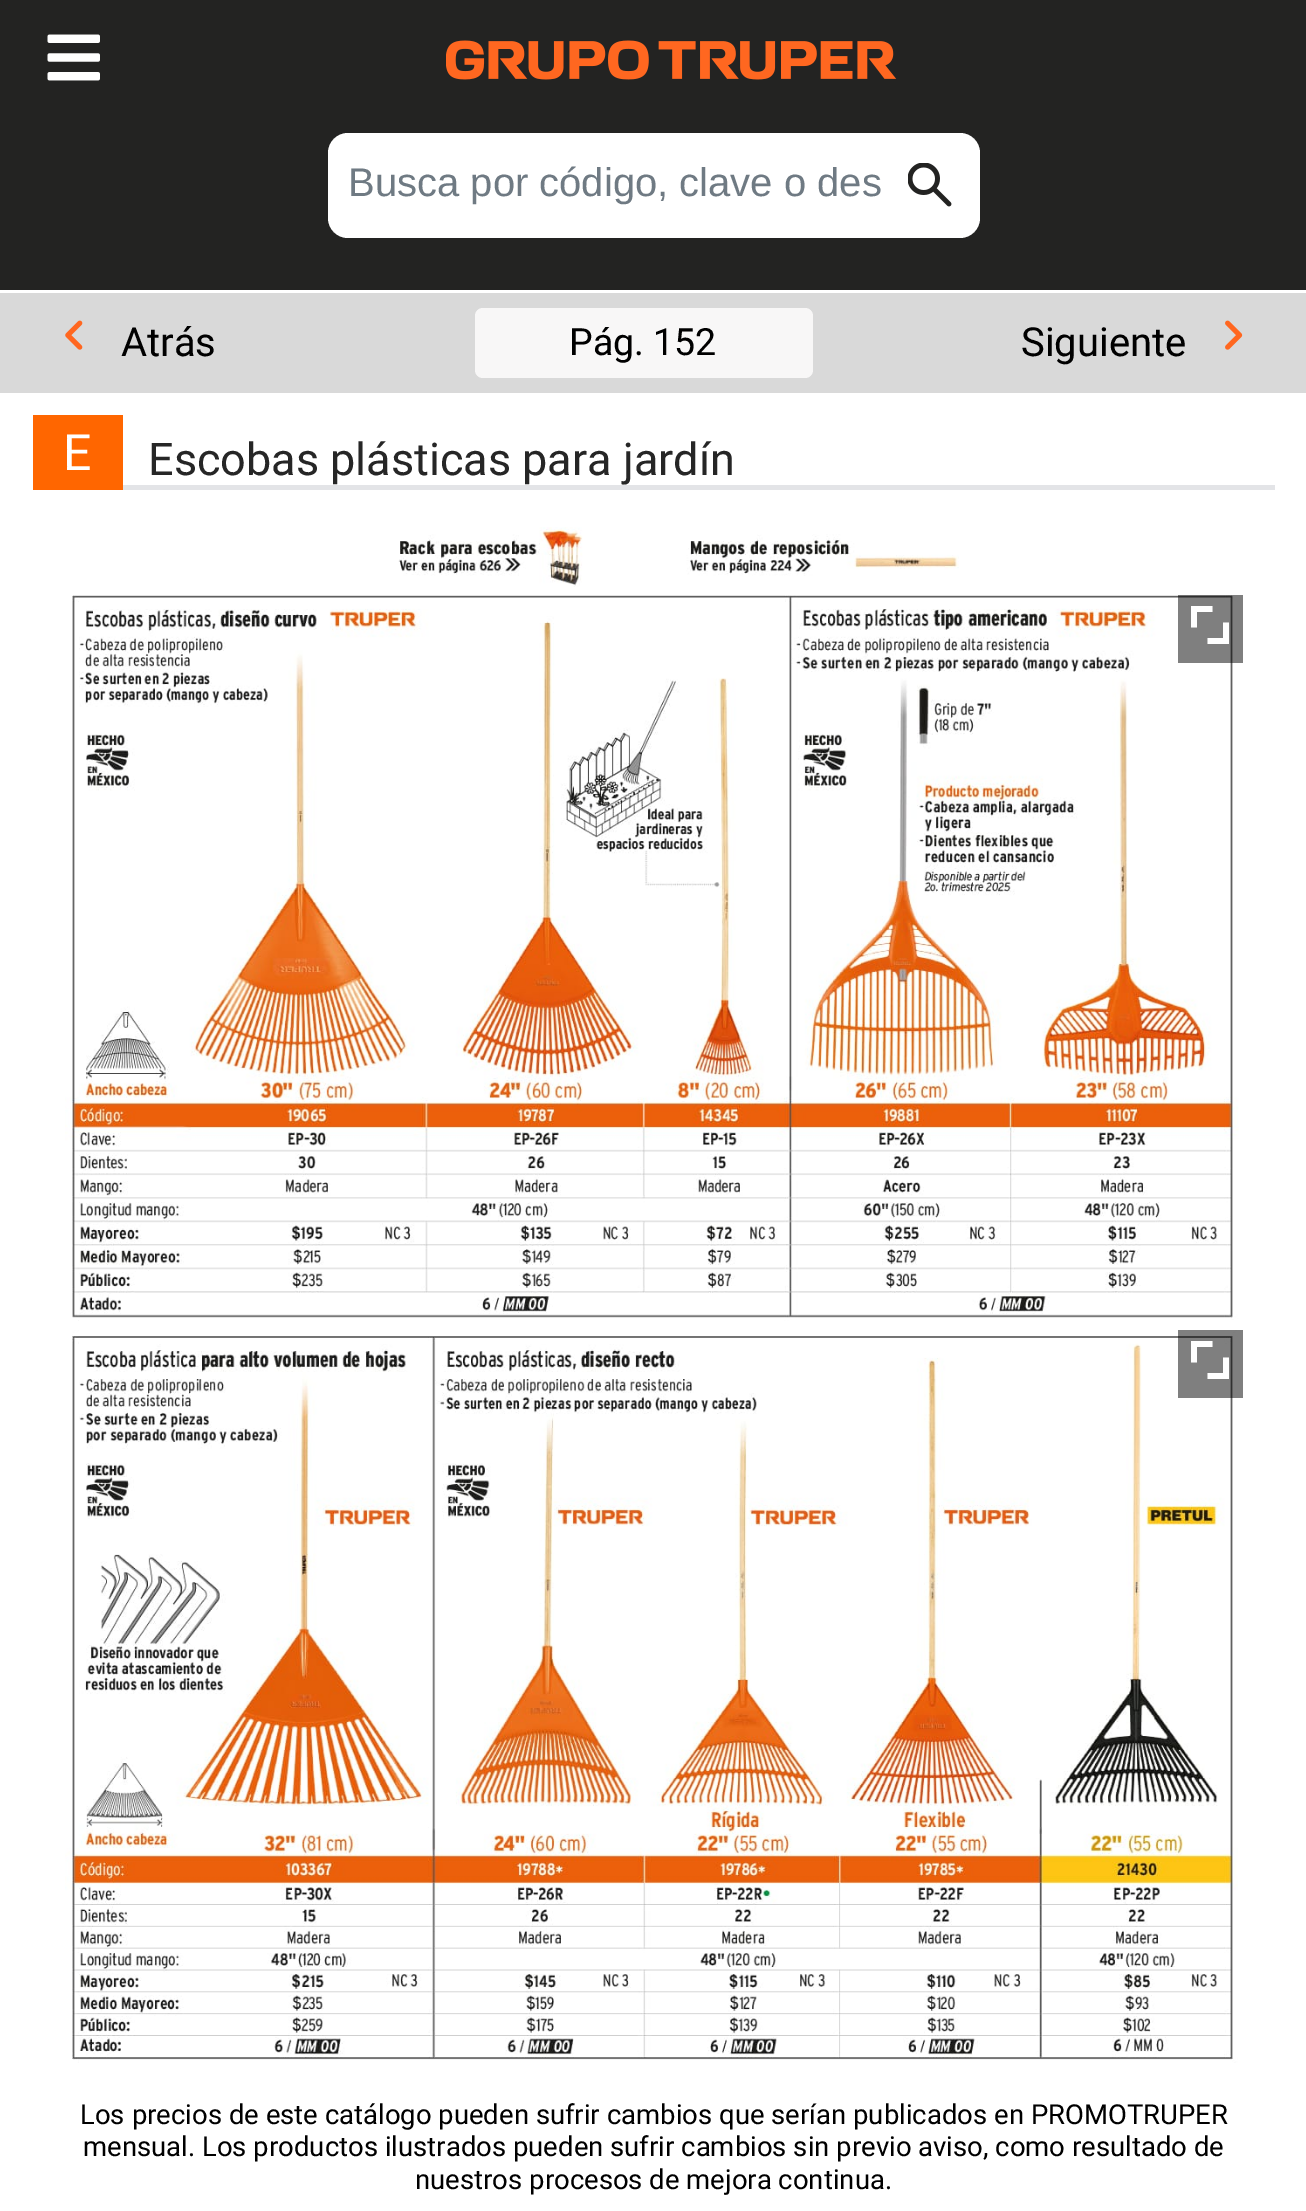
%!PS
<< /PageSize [1306 2211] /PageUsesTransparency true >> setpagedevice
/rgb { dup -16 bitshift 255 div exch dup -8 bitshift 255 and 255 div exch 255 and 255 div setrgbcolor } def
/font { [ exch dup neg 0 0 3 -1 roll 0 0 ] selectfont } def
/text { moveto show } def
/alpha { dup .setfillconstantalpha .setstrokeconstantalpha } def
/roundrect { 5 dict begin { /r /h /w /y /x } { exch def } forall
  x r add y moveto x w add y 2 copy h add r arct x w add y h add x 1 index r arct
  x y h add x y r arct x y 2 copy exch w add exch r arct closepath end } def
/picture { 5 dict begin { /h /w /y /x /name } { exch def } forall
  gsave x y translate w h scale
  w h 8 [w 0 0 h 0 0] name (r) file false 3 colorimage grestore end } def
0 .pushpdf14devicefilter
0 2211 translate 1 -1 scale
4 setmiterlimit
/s1 { /LiberationSans-Regular 40 font 16#6F7A83 rgb } def
/s2 { /Roboto-Regular 40 font 16#000000 rgb } def
/s3 { /Roboto-Regular 37.5 font 16#000000 rgb } def
/s4 { /Roboto-Regular 50 font 16#FFFFFF rgb } def
/s5 { /Roboto-Regular 45 font 16#262626 rgb } def
/s6 { /Roboto-Regular 27.5 font 16#000000 rgb } def
16#FFFFFF rgb
0 0 1306 2211 rectfill
16#232322 rgb
0 0 1306 290 rectfill
(pic1.raw) 47 34 53 47 picture
(pic2.raw) 446 40 451 40 picture
16#FFFFFF rgb
328 133 652 105 20 roundrect fill
s1
(Busca por código, clave o des) 348 196 text
(pic3.raw) 908 163 44 44 picture
16#D9D9D9 rgb
0 293 1306 100 rectfill
(pic4.raw) 65 320 18 30 picture
s2
(Atrás) 121 356 text
16#F8F7F7 rgb
475 308 338 70 8 roundrect fill
s3
(Pág. 152) 569 355 text
s2
(Siguiente) 1021 356 text
(pic5.raw) 1225 320 18 30 picture
16#FF6600 rgb
33 415 90 75 rectfill
s4
(E) 63 470 text
16#E3E4E7 rgb
123 485 1152 5 rectfill
s5
(Escobas plásticas para jardín) 148 475 text
(pic6.raw) 398 527 561 60 picture
(pic7.raw) 65 595 1174 726 picture
0.5 alpha
16#000000 rgb
1178 595 65 68 rectfill
1 alpha
16#FFFFFF rgb
1212.5 606 moveto 1191 606 lineto 1191 627.5 lineto 1197 627.5 lineto 1197 612 lineto 1212.5 612 lineto closepath fill
1223 622.5 moveto 1223 638 lineto 1207.5 638 lineto 1207.5 644 lineto 1229 644 lineto 1229 622.5 lineto closepath fill
(pic8.raw) 65 1330 1173 733 picture
0.5 alpha
16#000000 rgb
1178 1330 65 68 rectfill
1 alpha
16#FFFFFF rgb
1212.5 1341 moveto 1191 1341 lineto 1191 1362.5 lineto 1197 1362.5 lineto 1197 1347 lineto 1212.5 1347 lineto closepath fill
1223 1357.5 moveto 1223 1373 lineto 1207.5 1373 lineto 1207.5 1379 lineto 1229 1379 lineto 1229 1357.5 lineto closepath fill
s6
(Los precios de este catálogo pueden sufrir cambios que serían publicados en PROMOTRUPER) 80 2124 text
(mensual. Los productos ilustrados pueden sufrir cambios sin previo aviso, como resultado de) 83 2156 text
(nuestros procesos de mejora continua.) 415 2189 text
.poppdf14devicefilter showpage
